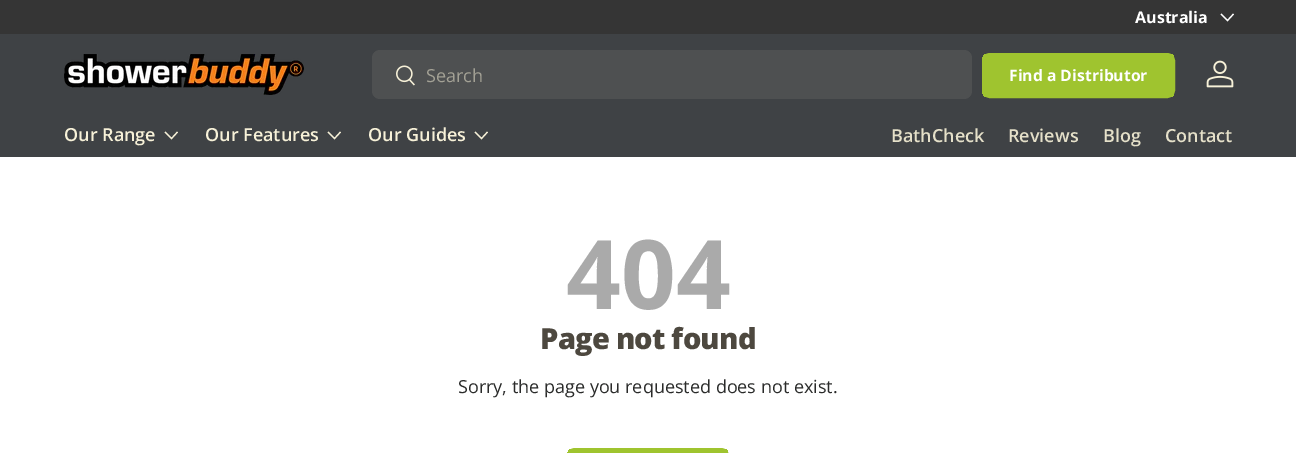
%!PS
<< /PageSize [1296 453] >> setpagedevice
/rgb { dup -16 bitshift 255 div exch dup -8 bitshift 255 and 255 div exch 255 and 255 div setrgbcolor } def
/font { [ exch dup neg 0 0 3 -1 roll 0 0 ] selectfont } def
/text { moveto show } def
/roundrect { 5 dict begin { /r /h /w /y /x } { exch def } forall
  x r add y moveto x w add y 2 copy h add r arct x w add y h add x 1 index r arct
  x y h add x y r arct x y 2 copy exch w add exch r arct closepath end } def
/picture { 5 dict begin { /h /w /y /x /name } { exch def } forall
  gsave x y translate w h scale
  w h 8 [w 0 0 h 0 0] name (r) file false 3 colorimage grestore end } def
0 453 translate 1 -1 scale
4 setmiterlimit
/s1 { /OpenSans-Bold 16 font 16#FFFFFF rgb } def
/s2 { /OpenSans-Regular 18 font 16#A3A195 rgb } def
/s3 { /OpenSans-Bold 15.75 font 16#FFFFFF rgb } def
/s4 { /OpenSans-SemiBold 18 font 16#F7F1D8 rgb } def
/s5 { /OpenSans-SemiBold 18 font 16#E5E0C9 rgb } def
/s6 { /OpenSans-Bold 96 font 16#AAAAAA rgb } def
/s7 { /OpenSans-Regular 18 font 16#2A2B2A rgb } def
16#FFFFFF rgb
0 0 1296 453 rectfill
16#353535 rgb
0 0 1296 34 rectfill
s1
(Australia) 1135 23 text
1.2 setlinewidth
1233.5 14 moveto 1227.5 20.5 lineto 1221 14 lineto stroke
16#3F4245 rgb
0 34 1296 123 rectfill
(pic1.raw) 64 54 240 41 picture
16#4E5051 rgb
372 50 600 49 8 roundrect fill
(pic2.raw) 396 65 19 21 picture
s2
(Search) 426 82 text
gsave
982 53 193 45 8 roundrect clip newpath
gsave 982 54 moveto 1174 54 lineto 1174 97 lineto 982 97 lineto closepath clip newpath
<< /ShadingType 2 /ColorSpace /DeviceRGB /Coords [613 7 1162 144] /Extend [true true] /Function << /FunctionType 3 /Domain [0 1] /Functions [<< /FunctionType 2 /Domain [0 1] /C0 [0.702 0.816 0.353] /C1 [0.702 0.816 0.353] /N 1 >> << /FunctionType 2 /Domain [0 1] /C0 [0.624 0.769 0.184] /C1 [0.624 0.769 0.184] /N 1 >>] /Bounds [0.6] /Encode [0 1 0 1] >> >> shfill grestore
grestore
16#9FC42F rgb
1 setlinewidth
982.5 53.5 192 44 7.5 roundrect stroke
s3
(Find a Distributor) 1009 81 text
(pic3.raw) 1206 60 28 28 picture
s4
(Our Range) 64 141 text
1.2 setlinewidth
177.5 132 moveto 171.5 138.5 lineto 165 132 lineto stroke
(Our Features) 205 141 text
340.5 132 moveto 334.5 138.5 lineto 328 132 lineto stroke
(Our Guides) 368 141 text
487.5 132 moveto 481.5 138.5 lineto 475 132 lineto stroke
s5
(BathCheck) 891 142 text
(Reviews) 1008 142 text
(Blog) 1103 142 text
(Contact) 1165 142 text
s6
(404) 566 309 text
/OpenSans-ExtraBold 29 font
16#4D483F rgb
540 349 moveto -0.75 0 (Page not found) ashow
s7
(Sorry, the page you requested does not exist.) 458 393 text
gsave
567 448 162 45 8 roundrect clip newpath
gsave 567 449 moveto 728 449 lineto 728 453 lineto 567 453 lineto closepath clip newpath
<< /ShadingType 2 /ColorSpace /DeviceRGB /Coords [257 413 719 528] /Extend [true true] /Function << /FunctionType 3 /Domain [0 1] /Functions [<< /FunctionType 2 /Domain [0 1] /C0 [0.702 0.816 0.353] /C1 [0.702 0.816 0.353] /N 1 >> << /FunctionType 2 /Domain [0 1] /C0 [0.624 0.769 0.184] /C1 [0.624 0.769 0.184] /N 1 >>] /Bounds [0.6] /Encode [0 1 0 1] >> >> shfill grestore
grestore
16#9FC42F rgb
1 setlinewidth
567.5 448.5 161 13 7.5 roundrect stroke
showpage
